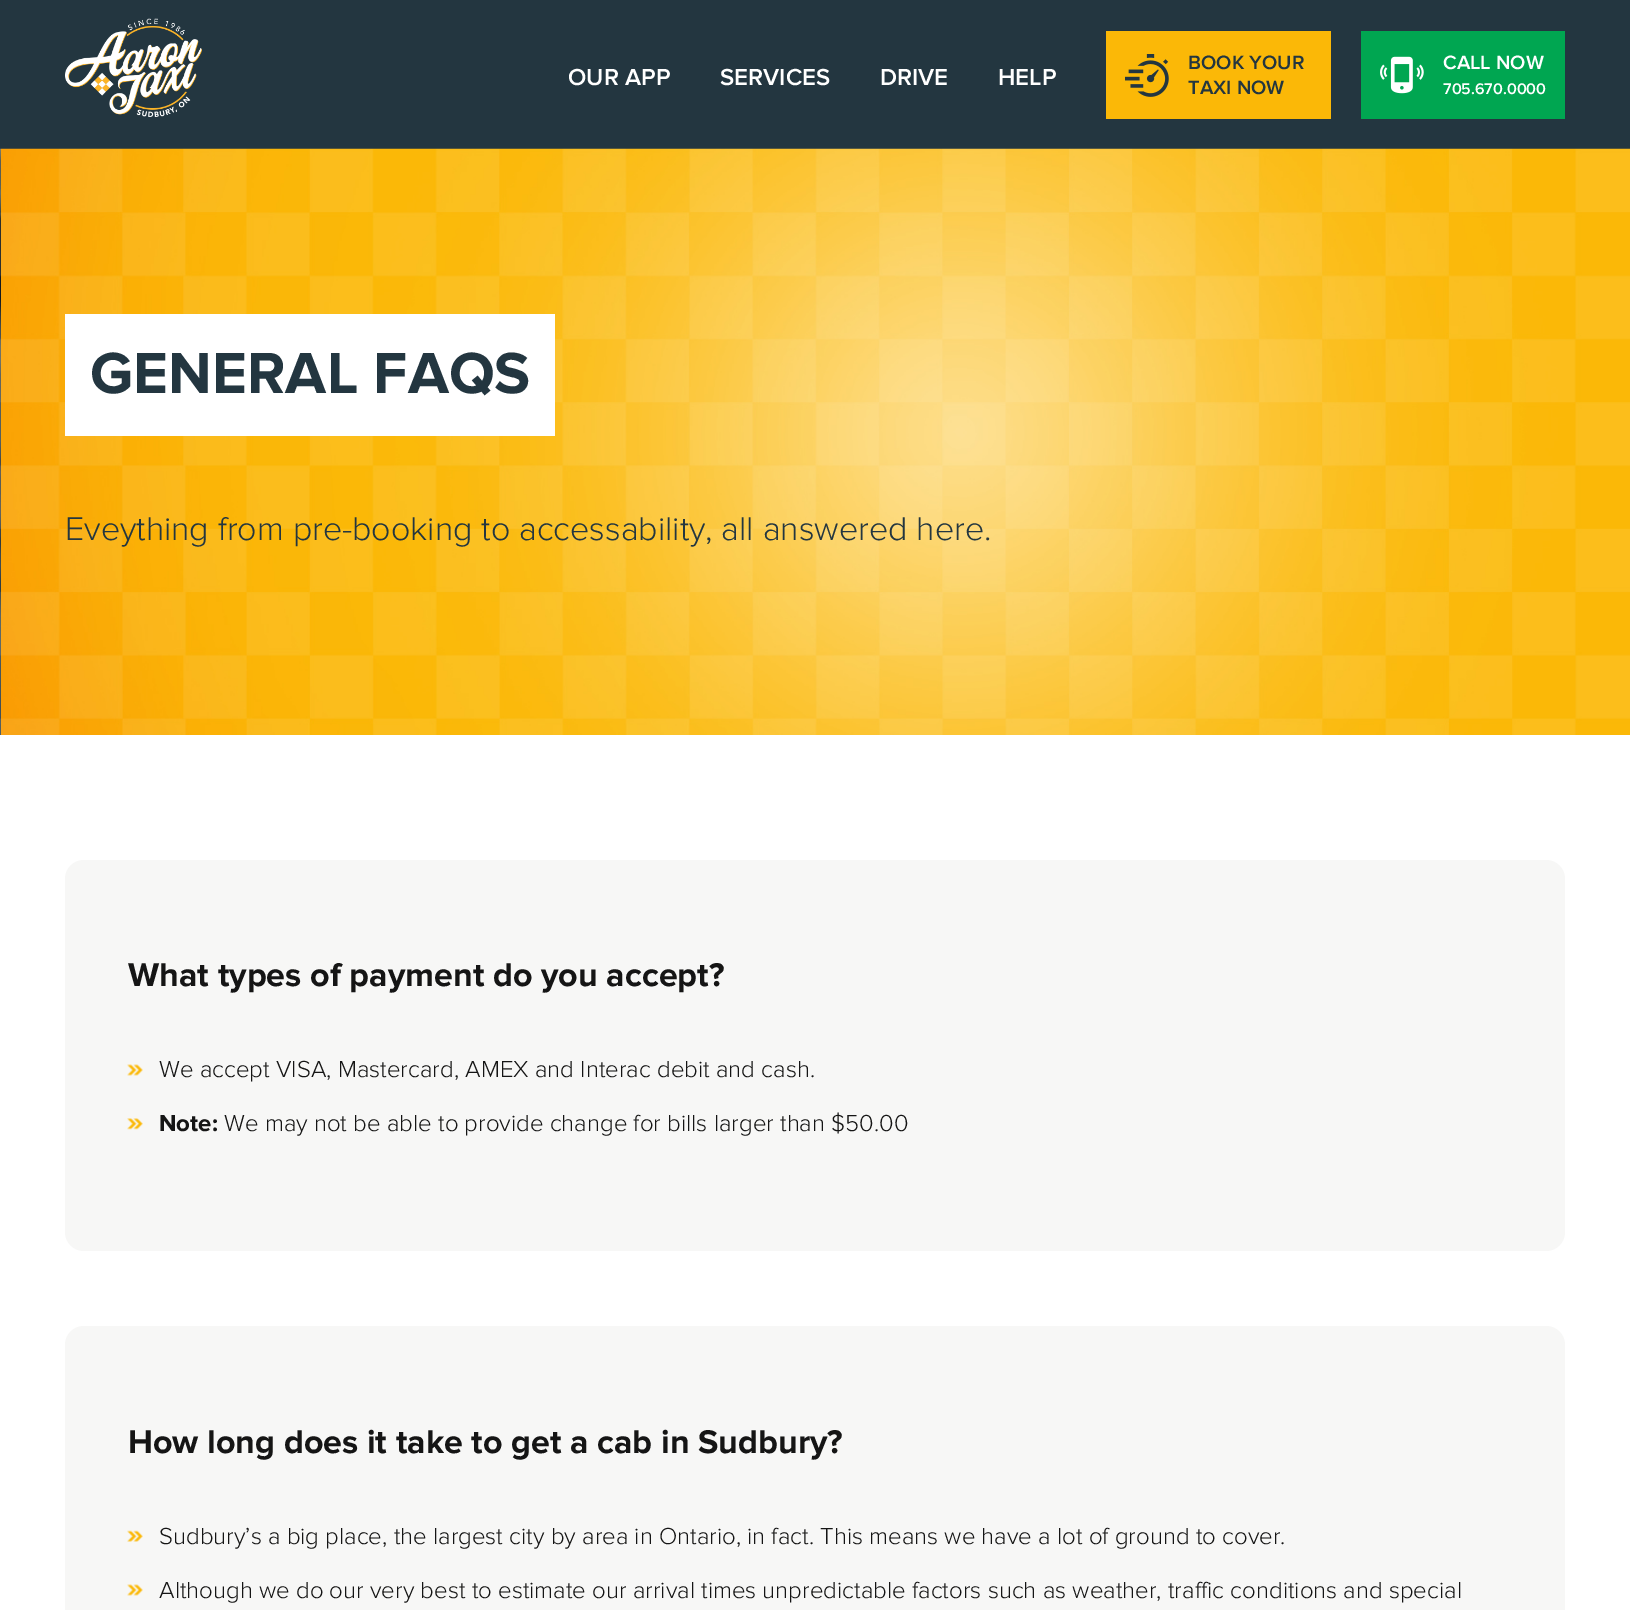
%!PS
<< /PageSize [1630 1610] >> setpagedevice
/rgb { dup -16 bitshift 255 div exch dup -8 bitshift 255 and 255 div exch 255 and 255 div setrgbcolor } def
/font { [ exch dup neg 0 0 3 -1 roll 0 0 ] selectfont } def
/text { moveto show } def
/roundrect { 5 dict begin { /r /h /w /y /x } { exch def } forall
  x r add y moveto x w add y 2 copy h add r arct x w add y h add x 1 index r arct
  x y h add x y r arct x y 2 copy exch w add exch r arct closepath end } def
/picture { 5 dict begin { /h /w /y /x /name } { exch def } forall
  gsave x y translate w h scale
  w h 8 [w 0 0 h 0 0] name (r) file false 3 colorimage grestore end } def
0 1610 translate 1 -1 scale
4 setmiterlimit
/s1 { /ProximaNova-SemiBold 24 font 16#FFFFFF rgb } def
/s2 { /ProximaNova-SemiBold 20 font 16#233640 rgb } def
/s3 { /ProximaNova-SemiBold 20 font 16#FFFFFF rgb } def
/s4 { /ProximaNova-SemiBold 16 font 16#FFFFFF rgb } def
/s5 { /ProximaNova-Bold 60 font 16#233640 rgb } def
/s6 { /ProximaNova-Light 34 font 16#233640 rgb } def
/s7 { /ProximaNova-Bold 34 font 16#151515 rgb } def
/s8 { /ProximaNova-Light 24 font 16#151515 rgb } def
/s9 { /ProximaNova-Bold 24 font 16#151515 rgb } def
16#FFFFFF rgb
0 0 1630 1610 rectfill
16#233640 rgb
0 0 1630 149 rectfill
(pic1.raw) 65 18 137 99 picture
s1
(OUR APP) 568 85 text
(SERVICES) 720 85 text
(DRIVE) 880 85 text
(HELP) 998 85 text
16#FBB807 rgb
1106 31 225 88 rectfill
(pic2.raw) 1125 54 44 43 picture
s2
(BOOK YOUR) 1188 69 text
(TAXI NOW) 1188 94 text
16#00A651 rgb
1361 31 204 88 rectfill
(pic3.raw) 1380 56 44 38 picture
s3
(CALL NOW) 1443 69 text
s4
(705.670.0000) 1443 94 text
(pic4.raw) 0 148 1630 587 picture
65 314 490 122 rectfill
s5
(GENERAL FAQS) 90 393 text
s6
(Eveything from pre-booking to accessability, all answered here.) 65 540 text
16#F7F7F6 rgb
65 860 1500 391 19 roundrect fill
s7
(What types of payment do you accept?) 128 986 text
(pic5.raw) 127 1064 16 12 picture
s8
(We accept VISA, Mastercard, AMEX and Interac debit and cash.) 159 1077 text
(pic6.raw) 127 1118 16 12 picture
s9
(Note:) 159 1131 text
s8
(We may not be able to provide change for bills larger than $50.00) 224 1131 text
16#F7F7F6 rgb
84 1326 moveto 1546 1326 lineto 1556.5 1326 1565 1334.5 1565 1345 curveto 1565 1610 lineto 65 1610 lineto 65 1345 lineto 65 1334.5 73.5 1326 84 1326 curveto closepath fill
s7
(How long does it take to get a cab in Sudbury?) 128 1453 text
(pic7.raw) 127 1530 16 12 picture
s8
(Sudbury’s a big place, the largest city by area in Ontario, in fact. This means we have a lot of ground to cover.) 159 1544 text
(pic5.raw) 127 1584 16 12 picture
(Although we do our very best to estimate our arrival times unpredictable factors such as weather, traffic conditions and special) 159 1598 text
showpage
